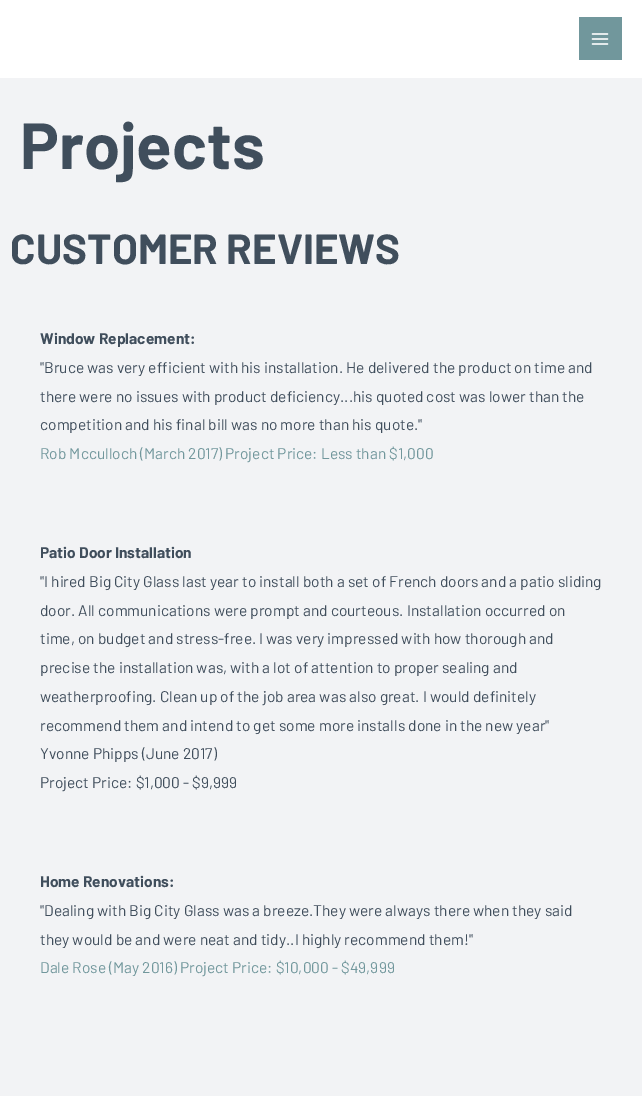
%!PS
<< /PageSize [642 1096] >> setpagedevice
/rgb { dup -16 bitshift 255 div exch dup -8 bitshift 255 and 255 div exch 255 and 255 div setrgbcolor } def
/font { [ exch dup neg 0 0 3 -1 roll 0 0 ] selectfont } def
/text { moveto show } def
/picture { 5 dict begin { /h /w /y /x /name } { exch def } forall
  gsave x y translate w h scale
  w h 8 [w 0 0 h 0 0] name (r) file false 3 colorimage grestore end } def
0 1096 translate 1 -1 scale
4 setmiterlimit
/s1 { /Barlow-Bold 65 font 16#404E5C rgb } def
/s2 { /Barlow-Bold 42 font 16#404E5C rgb } def
/s3 { /Barlow-Bold 15.5 font 16#404E5C rgb } def
/s4 { /Barlow-Regular 15.5 font 16#404E5C rgb } def
/s5 { /Barlow-Regular 15.5 font 16#71979C rgb } def
16#F2F3F5 rgb
0 0 642 1096 rectfill
16#FFFFFF rgb
0 0 642 78 rectfill
16#71979C rgb
579 17 43 43 rectfill
(pic1.raw) 591 33 18 12 picture
s1
(Projects) 20 169 text
s2
(CUSTOMER REVIEWS) 10 264 text
s3
(Window Replacement:) 40 344 text
s4
("Bruce was very efficient with his installation. He delivered the product on time and) 40 373 text
(there were no issues with product deficiency...his quoted cost was lower than the) 40 402 text
(competition and his final bill was no more than his quote.") 40 430 text
s5
(Rob Mcculloch \(March 2017\) Project Price: Less than $1,000) 40 459 text
s3
(Patio Door Installation) 40 558 text
s4
("I hired Big City Glass last year to install both a set of French doors and a patio sliding) 40 587 text
(door. All communications were prompt and courteous. Installation occurred on) 40 616 text
(time, on budget and stress-free. I was very impressed with how thorough and) 40 644 text
(precise the installation was, with a lot of attention to proper sealing and) 40 673 text
(weatherproofing. Clean up of the job area was also great. I would definitely) 40 702 text
(recommend them and intend to get some more installs done in the new year") 40 731 text
(Yvonne Phipps \(June 2017\)) 40 759 text
(Project Price: $1,000 - $9,999) 40 788 text
s3
(Home Renovations:) 40 887 text
s4
("Dealing with Big City Glass was a breeze.They were always there when they said) 40 916 text
(they would be and were neat and tidy..I highly recommend them!") 40 945 text
s5
(Dale Rose \(May 2016\) Project Price: $10,000 - $49,999) 40 973 text
showpage
